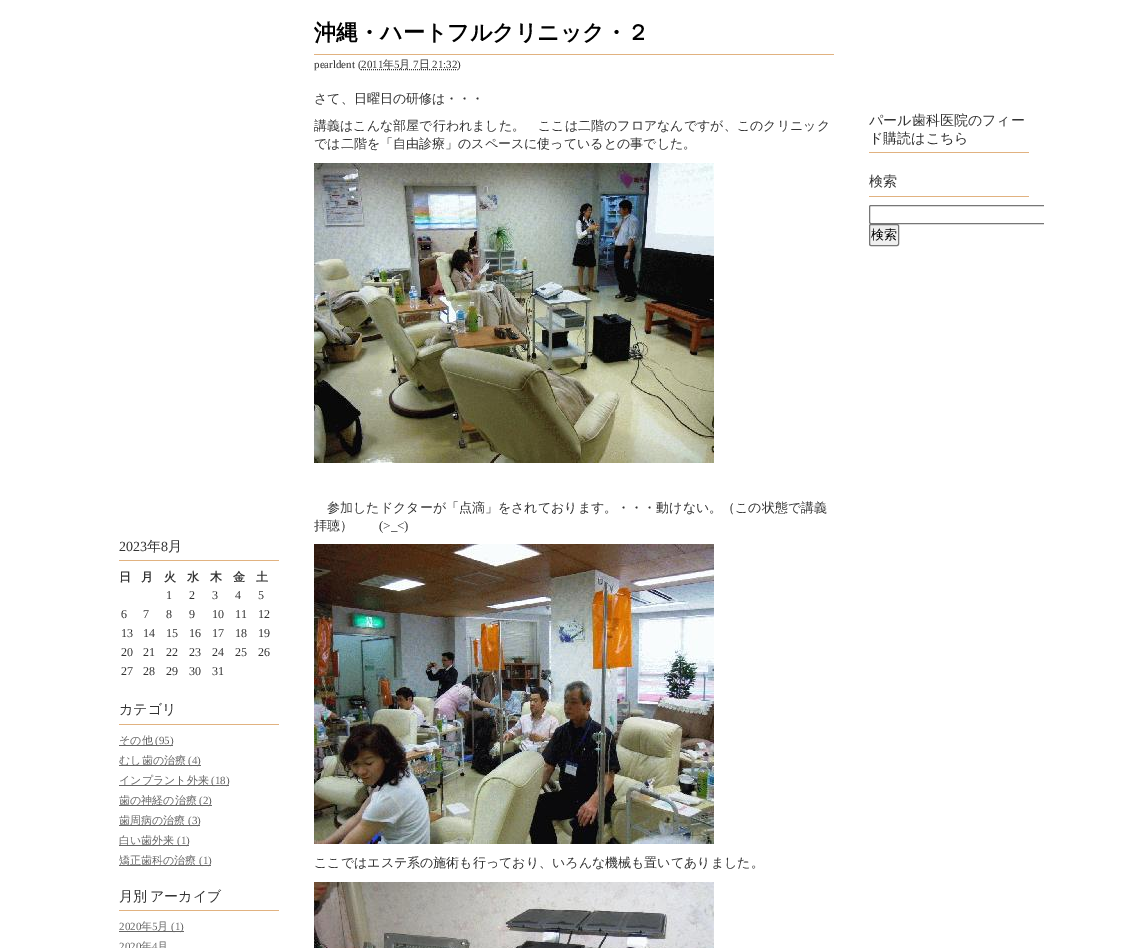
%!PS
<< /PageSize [1147 948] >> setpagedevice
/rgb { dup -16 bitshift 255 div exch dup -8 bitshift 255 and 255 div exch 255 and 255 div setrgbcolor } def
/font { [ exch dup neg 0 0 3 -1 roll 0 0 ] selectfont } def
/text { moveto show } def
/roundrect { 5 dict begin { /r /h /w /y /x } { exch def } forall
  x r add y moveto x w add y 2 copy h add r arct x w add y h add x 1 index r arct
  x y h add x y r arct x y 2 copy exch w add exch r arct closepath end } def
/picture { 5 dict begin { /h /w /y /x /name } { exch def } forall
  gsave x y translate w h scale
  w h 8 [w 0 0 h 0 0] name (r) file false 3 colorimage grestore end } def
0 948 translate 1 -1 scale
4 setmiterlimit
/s1 { /WenQuanYiZenHei-Bold 22 font 16#000000 rgb } def
/s2 { /LiberationSerif-Regular 11 font 16#333333 rgb } def
/s3 { /WenQuanYiZenHei-Medium 11 font 16#333333 rgb } def
/s4 { /WenQuanYiZenHei-Medium 13 font 16#333333 rgb } def
/s5 { /LiberationSerif-Regular 13 font 16#333333 rgb } def
/s6 { /WenQuanYiZenHei-Medium 14 font 16#333333 rgb } def
/s7 { /WenQuanYiZenHei-Medium 13 font 16#000000 rgb } def
/s8 { /LiberationSerif-Regular 14 font 16#333333 rgb } def
/s9 { /WenQuanYiZenHei-Bold 12 font 16#333333 rgb } def
/s10 { /LiberationSerif-Regular 12 font 16#333333 rgb } def
/s11 { /WenQuanYiZenHei-Medium 11 font 16#666666 rgb } def
/s12 { /LiberationSerif-Regular 11 font 16#666666 rgb } def
16#FFFFFF rgb
0 0 1147 948 rectfill
s1
(沖縄・ハートフルクリニック・２) 314 40 text
16#E1B280 rgb
314 54 520 1 rectfill
s2
(pearldent \(2011) 314 68 text
[1 1] 0 setdash
361 69.5 moveto 457.5 69.5 lineto stroke
s3
(年) 383 68 text
s2
(5) 394 68 text
s3
(月) 399 68 text
s2
(7) 413 68 text
s3
(日) 419 68 text
s2
(21:32\)) 432 68 text
s4
(さて、日曜日の研修は・・・) 314 103 text
gsave
314 18 520 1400 rectclip
(講義はこんな部屋で行われました。　ここは二階のフロアなんですが、このクリニック) 314 130 text
grestore
(では二階を「自由診療」のスペースに使っているとの事でした。) 314 148 text
(pic1.raw) 314 163 400 300 picture
(参加したドクターが「点滴」をされております。・・・動けない。（この状態で講義) 327 512 text
(拝聴）) 314 530 text
s5
(\(>_<\)) 379 530 text
(pic2.raw) 314 544 400 300 picture
s4
(ここではエステ系の施術も行っており、いろんな機械も置いてありました。) 314 867 text
(pic3.raw) 314 882 400 66 picture
16#E1B280 rgb
869 152 160 1 rectfill
s6
(パール歯科医院のフィー) 869 125 text
(ド購読はこちら) 869 143 text
16#E1B280 rgb
869 196 160 1 rectfill
s6
(検索) 869 186 text
gsave
854 173 190 93 rectclip
16#767676 rgb
[] 0 setdash
869.5 205.5 180 18 1.5 roundrect stroke
grestore
16#EFEFEF rgb
869.5 224.5 29 21 1.5 roundrect gsave fill grestore
16#767676 rgb
[] 0 setdash
stroke
s7
(検索) 871 239 text
16#E1B280 rgb
119 560 160 1 rectfill
s8
(2023) 119 551 text
s6
(年) 147 551 text
s8
(8) 161 551 text
s6
(月) 168 551 text
s9
(日) 119 581 text
(月) 141 581 text
(火) 164 581 text
(水) 187 581 text
(木) 210 581 text
(金) 233 581 text
(土) 256 581 text
s10
(1) 166 599 text
(2) 189 599 text
(3) 212 599 text
(4) 235 599 text
(5) 258 599 text
(6) 121 618 text
(7) 143 618 text
(8) 166 618 text
(9) 189 618 text
(10) 212 618 text
(11) 235 618 text
(12) 258 618 text
(13) 121 637 text
(14) 143 637 text
(15) 166 637 text
(16) 189 637 text
(17) 212 637 text
(18) 235 637 text
(19) 258 637 text
(20) 121 656 text
(21) 143 656 text
(22) 166 656 text
(23) 189 656 text
(24) 212 656 text
(25) 235 656 text
(26) 258 656 text
(27) 121 675 text
(28) 143 675 text
(29) 166 675 text
(30) 189 675 text
(31) 212 675 text
16#E1B280 rgb
119 724 160 1 rectfill
s6
(カテゴリ) 119 714 text
16#666666 rgb
119 745 54 1 rectfill
s11
(その他) 119 744 text
s12
(\(95\)) 155 744 text
119 765 82 1 rectfill
s11
(むし歯の治療) 119 764 text
s12
(\(4\)) 188 764 text
119 785 110 1 rectfill
s11
(インプラント外来) 119 784 text
s12
(\(18\)) 211 784 text
119 805 93 1 rectfill
s11
(歯の神経の治療) 119 804 text
s12
(\(2\)) 199 804 text
119 825 81 1 rectfill
s11
(歯周病の治療) 119 824 text
s12
(\(3\)) 188 824 text
119 845 70 1 rectfill
s11
(白い歯外来) 119 844 text
s12
(\(1\)) 177 844 text
119 865 92 1 rectfill
s11
(矯正歯科の治療) 119 864 text
s12
(\(1\)) 199 864 text
16#E1B280 rgb
119 910 160 1 rectfill
s6
(月別) 119 901 text
(アーカイブ) 150 901 text
s12
(2020) 119 930 text
119 931 65 1 rectfill
s11
(年) 141 930 text
s12
(5) 152 930 text
s11
(月) 157 930 text
s12
(\(1\)) 171 930 text
(2020) 119 950 text
s11
(年) 141 950 text
s12
(4) 152 950 text
s11
(月) 157 950 text
showpage
